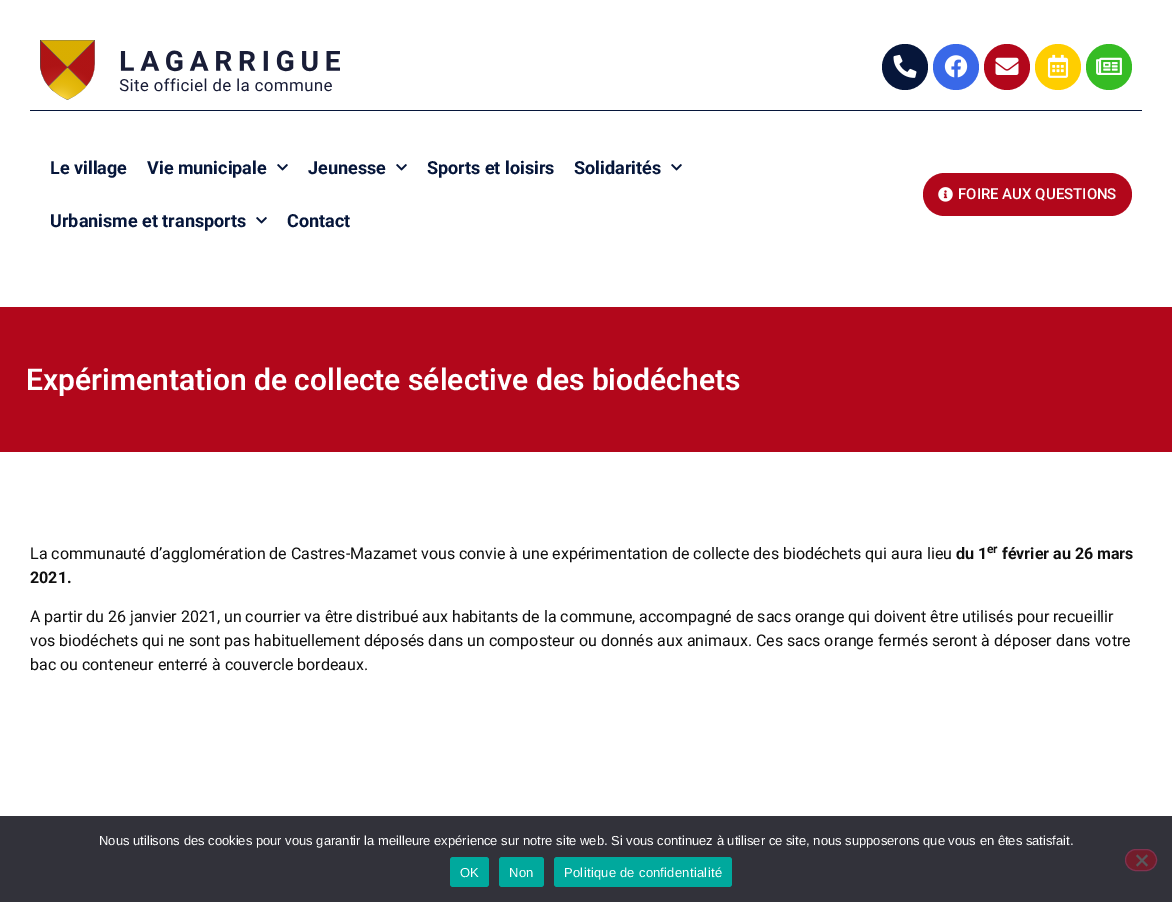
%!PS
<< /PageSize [1172 902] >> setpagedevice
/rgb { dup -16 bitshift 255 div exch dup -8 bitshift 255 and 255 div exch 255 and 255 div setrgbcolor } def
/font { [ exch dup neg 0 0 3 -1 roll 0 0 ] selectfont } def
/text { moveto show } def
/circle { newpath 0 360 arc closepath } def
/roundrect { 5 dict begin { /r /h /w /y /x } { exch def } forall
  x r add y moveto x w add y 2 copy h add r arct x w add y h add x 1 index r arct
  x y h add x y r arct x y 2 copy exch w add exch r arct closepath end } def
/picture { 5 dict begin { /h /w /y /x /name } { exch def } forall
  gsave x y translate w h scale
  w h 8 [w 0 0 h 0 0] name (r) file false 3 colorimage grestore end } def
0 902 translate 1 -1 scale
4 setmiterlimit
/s1 { /Roboto-Bold 18 font 16#06163A rgb } def
/s2 { /Roboto-Medium 15 font 16#FFFFFF rgb } def
/s3 { /Roboto-SemiBold 30 font 16#FFFFFF rgb } def
/s4 { /Roboto-Regular 16 font 16#101010 rgb } def
/s5 { /Roboto-Bold 16 font 16#101010 rgb } def
/s6 { /Roboto-Bold 12 font 16#101010 rgb } def
/s7 { /LiberationSans-Regular 13 font 16#FFFFFF rgb } def
16#FFFFFF rgb
0 0 1172 902 rectfill
16#06163A rgb
30 110 1112 1 rectfill
(pic1.raw) 40 40 300 60 picture
905 67 23 circle fill
(pic2.raw) 893 54 24 24 picture
16#3968E8 rgb
956 67 23 circle fill
(pic3.raw) 944 55 24 23 picture
16#B2071B rgb
1007 67 23 circle fill
(pic4.raw) 995 57 24 18 picture
16#FFCE00 rgb
1058 67 23 circle fill
(pic5.raw) 1047 54 22 24 picture
16#36BC24 rgb
1109 67 23 circle fill
(pic6.raw) 1096 57 26 18 picture
s1
(Le village) 50 174 text
(Vie municipale) 147 174 text
(pic7.raw) 277 164 11 7 picture
(Jeunesse) 308 174 text
(pic7.raw) 396 164 11 7 picture
(Sports et loisirs) 427 174 text
(Solidarités) 574 174 text
(pic7.raw) 671 164 11 7 picture
(Urbanisme et transports) 50 227 text
(pic7.raw) 256 217 11 7 picture
(Contact) 287 227 text
16#B2071B rgb
923 173 209 43 21.5 roundrect fill
(pic8.raw) 938 187 15 15 picture
s2
(FOIRE AUX QUESTIONS) 958 199 text
16#B2071B rgb
0 307 1172 145 rectfill
s3
(Expérimentation de collecte sélective des biodéchets) 26 390 text
s4
(La communauté d’agglomération de Castres-Mazamet vous convie à une expérimentation de collecte des biodéchets qui aura lieu) 30 559 text
s5
(du 1) 956 559 text
s6
(er) 987 553 text
s5
(février au 26 mars) 1002 559 text
(2021.) 30 583 text
s4
(A partir du 26 janvier 2021, un courrier va être distribué aux habitants de la commune, accompagné de sacs orange qui doivent être utilisés pour recueillir) 30 622 text
(vos biodéchets qui ne sont pas habituellement déposés dans un composteur ou donnés aux animaux. Ces sacs orange fermés seront à déposer dans votre) 30 646 text
(bac ou conteneur enterré à couvercle bordeaux.) 30 670 text
16#32323A rgb
0 816 1172 86 rectfill
s7
(Nous utilisons des cookies pour vous garantir la meilleure expérience sur notre site web. Si vous continuez à utiliser ce site, nous supposerons que vous en êtes satisfait.) 99 845 text
16#721D2B rgb
1125.5 849.5 31 21 10.5 roundrect gsave fill grestore
16#7F3350 rgb
stroke
16#59595D rgb
1146.5 854.5 moveto 1148 856 lineto 1137.5 866.5 lineto 1136 865 lineto closepath fill
1136 856 moveto 1137.5 854.5 lineto 1148 865 lineto 1146.5 866.5 lineto closepath fill
16#00A99D rgb
450 857 39 30 3 roundrect fill
16#FFFFFF rgb
460 877 moveto 0.25 0 (OK) ashow
16#00A99D rgb
499 857 45 30 3 roundrect fill
16#FFFFFF rgb
509 877 moveto 0.25 0 (Non) ashow
16#00A99D rgb
554 857 178 30 3 roundrect fill
16#FFFFFF rgb
564 877 moveto 0.25 0 (Politique de confidentialité) ashow
showpage
